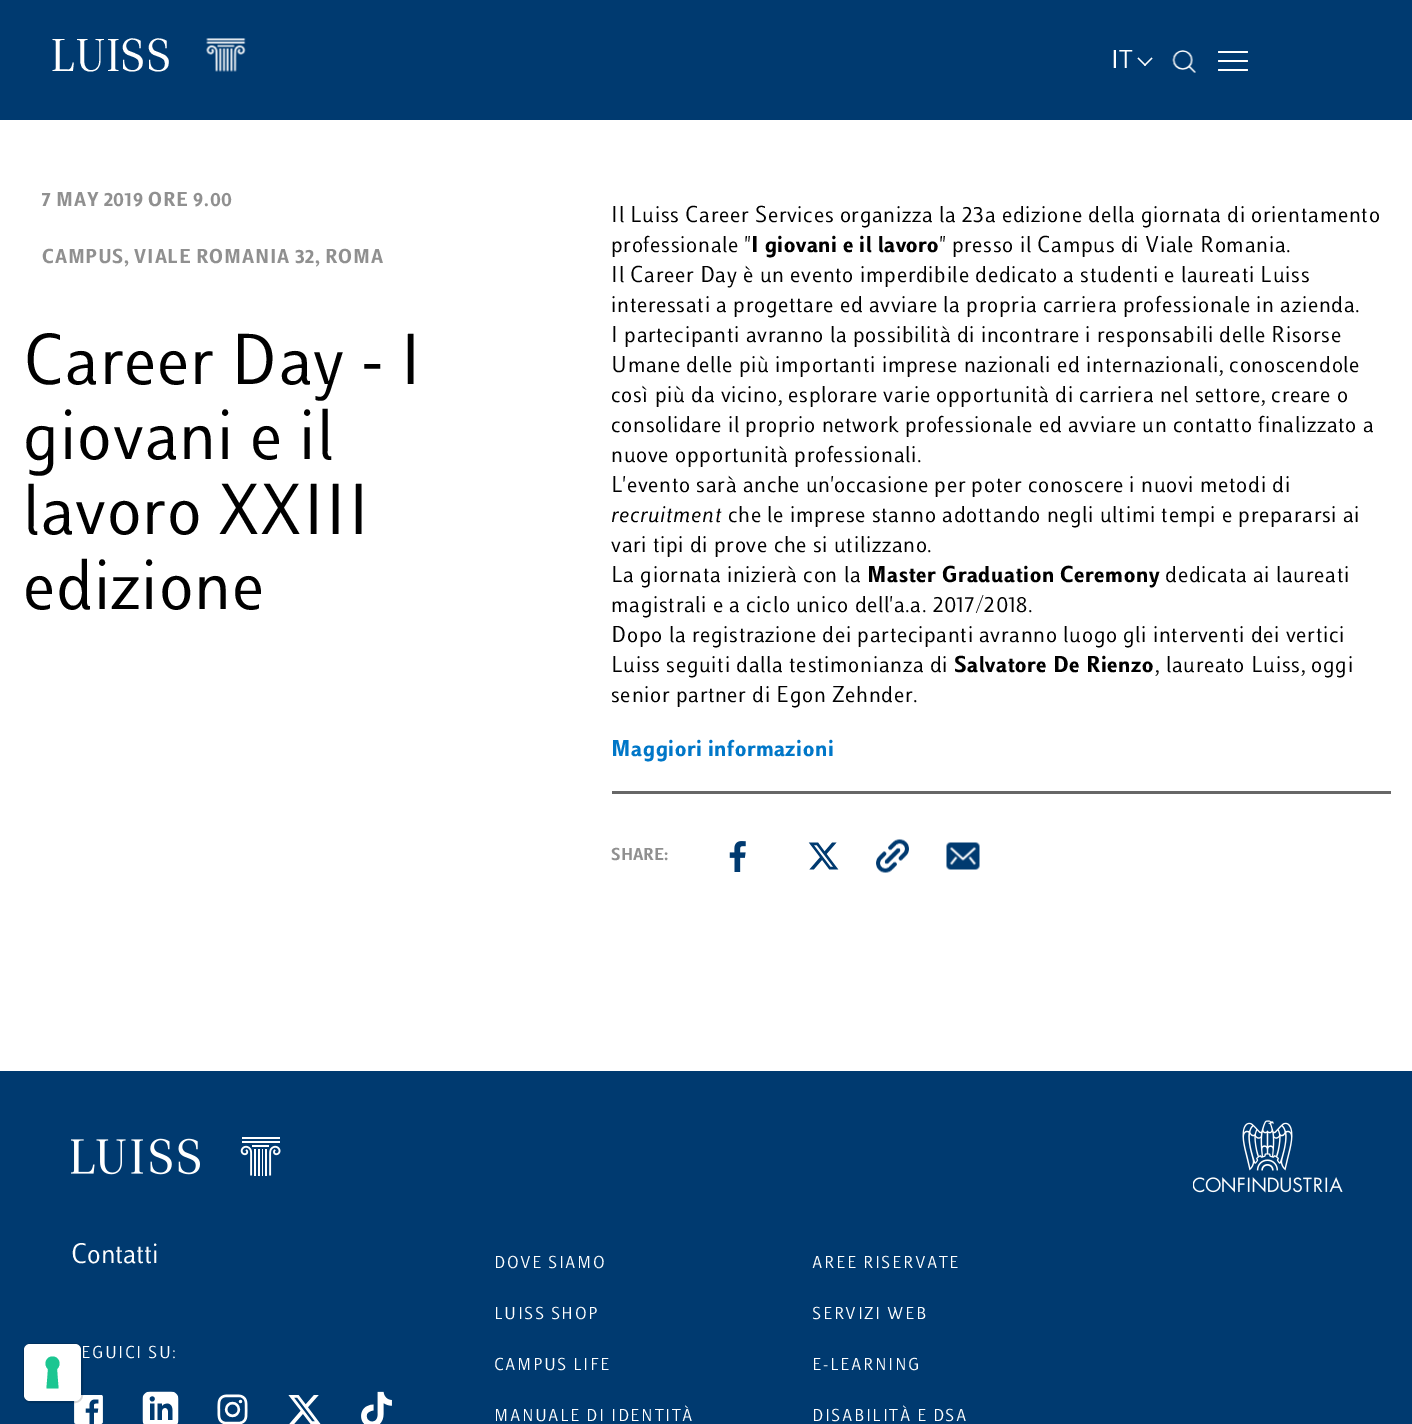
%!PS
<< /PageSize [1412 1424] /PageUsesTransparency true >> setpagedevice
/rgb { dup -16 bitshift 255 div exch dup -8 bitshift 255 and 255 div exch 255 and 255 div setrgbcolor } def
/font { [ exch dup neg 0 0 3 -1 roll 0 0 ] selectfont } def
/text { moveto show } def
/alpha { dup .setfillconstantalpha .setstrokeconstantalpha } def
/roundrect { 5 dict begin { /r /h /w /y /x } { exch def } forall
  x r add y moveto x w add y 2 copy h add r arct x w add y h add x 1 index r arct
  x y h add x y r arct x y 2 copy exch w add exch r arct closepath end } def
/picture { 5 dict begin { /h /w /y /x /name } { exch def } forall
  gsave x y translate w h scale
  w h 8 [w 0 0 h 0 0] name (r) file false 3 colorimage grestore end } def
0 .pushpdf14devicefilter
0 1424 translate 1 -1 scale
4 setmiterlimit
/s1 { /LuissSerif-Regular 48 font 16#FFFFFF rgb } def
/s2 { /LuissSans-Bold 18 font 16#909090 rgb } def
/s3 { /LuissSans-Regular 29.5 font 16#FFFFFF rgb } def
16#FFFFFF rgb
0 0 1412 1424 rectfill
16#003A70 rgb
0 0 1412 120 rectfill
s1
(LUISS) 51 71 text
(pic1.raw) 206 38 40 34 picture
/LuissSans-Regular 27 font
1111 68 moveto 0.75 0 (IT) ashow
1151.5 57.5 moveto 1152.5 58.5 lineto 1145 66 lineto 1144 65 lineto closepath fill
1138.5 57.5 moveto 1146 65 lineto 1145 66 lineto 1137.5 58.5 lineto closepath fill
(pic2.raw) 1172 50 24 23 picture
1218 51 30 2 1 roundrect fill
1218 60 30 2 1 roundrect fill
1218 69 30 2 1 roundrect fill
/LuissSans-Bold 21 font
16#909090 rgb
42 206 moveto 0.75 0 (7 MAY 2019 ORE 9.00) ashow
42 263 moveto 0.75 0 (CAMPUS, VIALE ROMANIA 32, ROMA) ashow
/LuissSans-Regular 75 font
16#000000 rgb
23 384 moveto 1 0 (Career Day - I) ashow
23 459 moveto 1 0 (giovani e il) ashow
23 534 moveto 1 0 (lavoro XXIII) ashow
23 609 moveto 1 0 (edizione) ashow
/LuissSans-Regular 24 font
611 222 moveto 0.75 0 (Il Luiss Career Services organizza la 23a edizione della giornata di orientamento) ashow
611 252 moveto 0.75 0 (professionale ") ashow
/LuissSans-Bold 24 font
751 252 moveto 0.75 0 (I giovani e il lavoro) ashow
/LuissSans-Regular 24 font
940 252 moveto 0.75 0 (" presso il Campus di Viale Romania.) ashow
611 282 moveto 0.75 0 (Il Career Day è un evento imperdibile dedicato a studenti e laureati Luiss) ashow
611 312 moveto 0.75 0 (interessati a progettare ed avviare la propria carriera professionale in azienda.) ashow
611 342 moveto 0.75 0 (I partecipanti avranno la possibilità di incontrare i responsabili delle Risorse) ashow
611 372 moveto 0.75 0 (Umane delle più importanti imprese nazionali ed internazionali, conoscendole) ashow
611 402 moveto 0.75 0 (così più da vicino, esplorare varie opportunità di carriera nel settore, creare o) ashow
611 432 moveto 0.75 0 (consolidare il proprio network professionale ed avviare un contatto finalizzato a) ashow
611 462 moveto 0.75 0 (nuove opportunità professionali.) ashow
611 492 moveto 0.75 0 (L'evento sarà anche un'occasione per poter conoscere i nuovi metodi di) ashow
/LuissSans-Italic 24 font
611 522 moveto 0.75 0 (recruitment) ashow
/LuissSans-Regular 24 font
728 522 moveto 0.75 0 (che le imprese stanno adottando negli ultimi tempi e prepararsi ai) ashow
611 552 moveto 0.75 0 (vari tipi di prove che si utilizzano.) ashow
611 582 moveto 0.75 0 (La giornata inizierà con la) ashow
/LuissSans-Bold 24 font
867 582 moveto 0.75 0 (Master Graduation Ceremony) ashow
/LuissSans-Regular 24 font
1165 582 moveto 0.75 0 (dedicata ai laureati) ashow
611 612 moveto 0.75 0 (magistrali e a ciclo unico dell'a.a. 2017/2018.) ashow
611 642 moveto 0.75 0 (Dopo la registrazione dei partecipanti avranno luogo gli interventi dei vertici) ashow
611 672 moveto 0.75 0 (Luiss seguiti dalla testimonianza di) ashow
/LuissSans-Bold 24 font
954 672 moveto 0.75 0 (Salvatore De Rienzo) ashow
/LuissSans-Regular 24 font
1155 672 moveto 0.75 0 (, laureato Luiss, oggi) ashow
611 702 moveto 0.75 0 (senior partner di Egon Zehnder.) ashow
/LuissSans-Bold 24 font
16#0077C8 rgb
611 756 moveto 0.75 0 (Maggiori informazioni) ashow
16#676767 rgb
612 791 779 3 rectfill
s2
(SHARE:) 611 860 text
(pic3.raw) 729 841 17 31 picture
(pic4.raw) 808 842 31 28 picture
(pic5.raw) 876 839 33 34 picture
(pic6.raw) 946 842 34 28 picture
16#003A70 rgb
0 1071 1412 353 rectfill
(pic7.raw) 71 1137 210 39 picture
(pic8.raw) 1193 1120 150 73 picture
s3
(Contatti) 71 1263 text
/LuissSans-Regular 18 font
81 1358 moveto 1.5 0 (EGUICI SU:) ashow
(pic9.raw) 74 1395 29 29 picture
(pic10.raw) 142 1391 37 33 picture
(pic11.raw) 217 1394 31 30 picture
(pic12.raw) 288 1395 33 29 picture
(pic13.raw) 361 1391 31 33 picture
494 1268 moveto 1.5 0 (DOVE SIAMO) ashow
494 1319 moveto 1.5 0 (LUISS SHOP) ashow
494 1370 moveto 1.5 0 (CAMPUS LIFE) ashow
494 1421 moveto 1.5 0 (MANUALE DI IDENTITÀ) ashow
812 1268 moveto 1.5 0 (AREE RISERVATE) ashow
812 1319 moveto 1.5 0 (SERVIZI WEB) ashow
812 1370 moveto 1.5 0 (E-LEARNING) ashow
812 1421 moveto 1.5 0 (DISABILITÀ E DSA) ashow
0.15 alpha
16#000000 rgb
2 setlinewidth
24 1344 58 58 7 roundrect stroke
1 alpha
16#FFFFFF rgb
24 1344 57 57 6 roundrect fill
16#1CC691 rgb
52.5 1356.5 moveto 59 1356.5 62 1364.5 57 1369 curveto 58.5 1388.5 lineto 46.5 1388.5 lineto 48 1369 lineto 43 1364.5 46 1356.5 52.5 1356.5 curveto closepath eofill
.poppdf14devicefilter showpage
